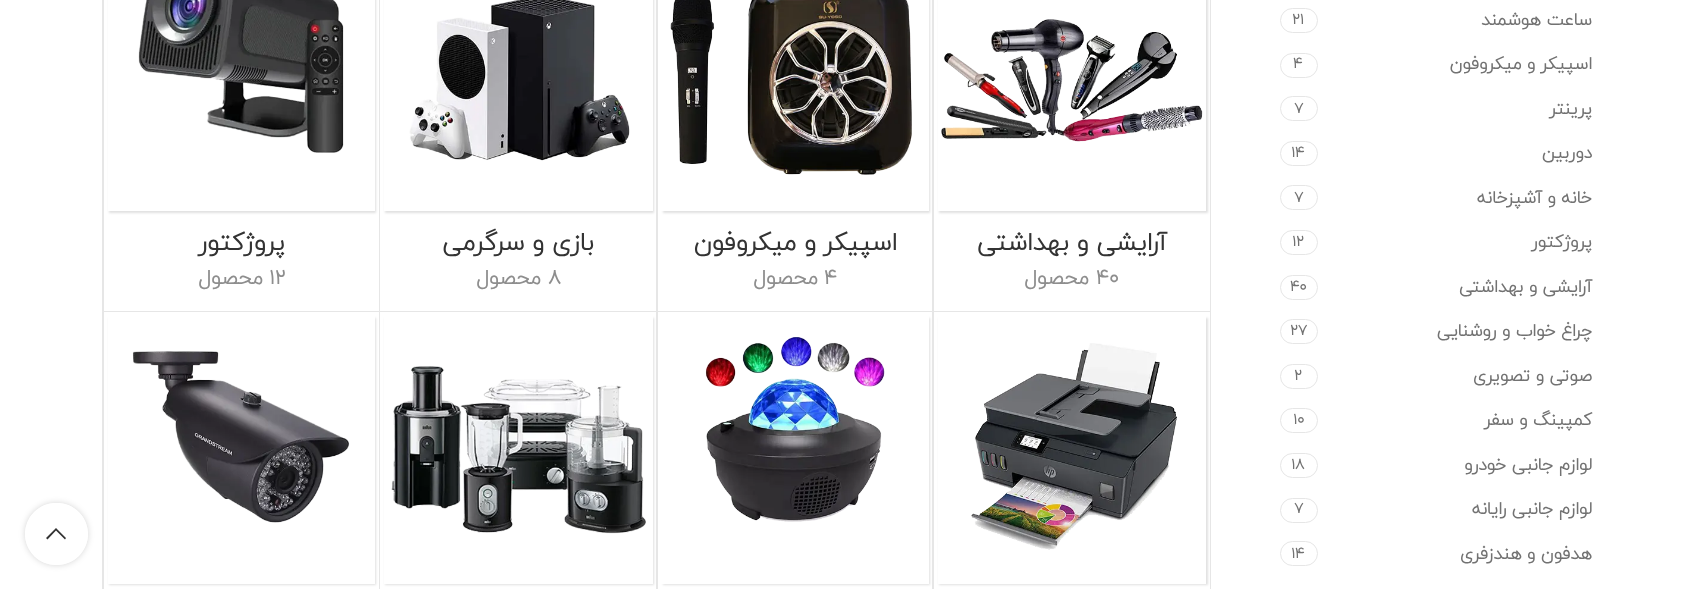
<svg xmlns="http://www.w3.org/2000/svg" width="1695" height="589">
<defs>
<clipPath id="clip1"><path d="M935 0h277v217h-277zm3-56h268v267h-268z" clip-rule="evenodd"/></clipPath>
<clipPath id="clip2"><path d="M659 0h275v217h-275zm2-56h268v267h-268z" clip-rule="evenodd"/></clipPath>
<clipPath id="clip3"><path d="M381 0h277v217h-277zm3-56h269v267h-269z" clip-rule="evenodd"/></clipPath>
<clipPath id="clip4"><path d="M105 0h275v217h-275zm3-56h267v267h-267z" clip-rule="evenodd"/></clipPath>
<clipPath id="clip5"><path d="M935 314h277v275h-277zm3 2h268v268h-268z" clip-rule="evenodd"/></clipPath>
<clipPath id="clip6"><path d="M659 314h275v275h-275zm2 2h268v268h-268z" clip-rule="evenodd"/></clipPath>
<clipPath id="clip7"><path d="M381 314h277v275h-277zm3 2h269v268h-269z" clip-rule="evenodd"/></clipPath>
<clipPath id="clip8"><path d="M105 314h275v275h-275zm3 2h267v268h-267z" clip-rule="evenodd"/></clipPath>
<clipPath id="clip9"><path d="M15 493h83v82h-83zm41 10h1c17 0 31 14 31 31c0 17-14 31-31 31h-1c-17 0-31-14-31-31c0-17 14-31 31-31z" clip-rule="evenodd"/></clipPath>
</defs>
<rect width="100%" height="100%" fill="#fff"/>
<text x="1592" y="25" style="font-family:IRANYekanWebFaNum;font-size:17.5px;font-weight:bold;direction:rtl;fill:#727272">ساعت هوشمند</text>
<rect x="1280.5" y="8.5" width="37" height="24" rx="12" fill="none" stroke="#e6e6e6"/>
<text x="1292" y="24" style="font-family:IRANYekanWebFaNum;font-size:15px;font-weight:bold;fill:#727272">۲۱</text>
<text x="1592" y="69" style="font-family:IRANYekanWebFaNum;font-size:17.5px;font-weight:bold;direction:rtl;fill:#727272">اسپیکر و میکروفون</text>
<rect x="1280.5" y="53.5" width="37" height="24" rx="12" fill="none" stroke="#e6e6e6"/>
<text x="1293" y="68" style="font-family:IRANYekanWebFaNum;font-size:15px;font-weight:bold;fill:#727272">۴</text>
<text x="1592" y="114" style="font-family:IRANYekanWebFaNum;font-size:17.5px;font-weight:bold;direction:rtl;fill:#727272">پرینتر</text>
<rect x="1280.5" y="96.5" width="37" height="24" rx="12" fill="none" stroke="#e6e6e6"/>
<text x="1294" y="113" style="font-family:IRANYekanWebFaNum;font-size:15px;font-weight:bold;fill:#727272">۷</text>
<text x="1592" y="158" style="font-family:IRANYekanWebFaNum;font-size:17.5px;font-weight:bold;direction:rtl;fill:#727272">دوربین</text>
<rect x="1280.5" y="141.5" width="37" height="24" rx="12" fill="none" stroke="#e6e6e6"/>
<text x="1291" y="157" style="font-family:IRANYekanWebFaNum;font-size:15px;font-weight:bold;fill:#727272">۱۴</text>
<text x="1592" y="203" style="font-family:IRANYekanWebFaNum;font-size:17.5px;font-weight:bold;direction:rtl;fill:#727272">خانه و آشپزخانه</text>
<rect x="1280.5" y="185.5" width="37" height="24" rx="12" fill="none" stroke="#e6e6e6"/>
<text x="1294" y="202" style="font-family:IRANYekanWebFaNum;font-size:15px;font-weight:bold;fill:#727272">۷</text>
<text x="1592" y="247" style="font-family:IRANYekanWebFaNum;font-size:17.5px;font-weight:bold;direction:rtl;fill:#727272">پروژکتور</text>
<rect x="1280.5" y="230.5" width="37" height="24" rx="12" fill="none" stroke="#e6e6e6"/>
<text x="1292" y="246" style="font-family:IRANYekanWebFaNum;font-size:15px;font-weight:bold;fill:#727272">۱۲</text>
<text x="1592" y="292" style="font-family:IRANYekanWebFaNum;font-size:17.5px;font-weight:bold;direction:rtl;fill:#727272">آرایشی و بهداشتی</text>
<rect x="1280.5" y="275.5" width="37" height="24" rx="12" fill="none" stroke="#e6e6e6"/>
<text x="1290" y="291" style="font-family:IRANYekanWebFaNum;font-size:15px;font-weight:bold;fill:#727272">۴۰</text>
<text x="1592" y="336" style="font-family:IRANYekanWebFaNum;font-size:17.5px;font-weight:bold;direction:rtl;fill:#727272">چراغ خواب و روشنایی</text>
<rect x="1280.5" y="319.5" width="37" height="24" rx="12" fill="none" stroke="#e6e6e6"/>
<text x="1290" y="335" style="font-family:IRANYekanWebFaNum;font-size:15px;font-weight:bold;fill:#727272">۲۷</text>
<text x="1592" y="381" style="font-family:IRANYekanWebFaNum;font-size:17.5px;font-weight:bold;direction:rtl;fill:#727272">صوتی و تصویری</text>
<rect x="1280.5" y="364.5" width="37" height="24" rx="12" fill="none" stroke="#e6e6e6"/>
<text x="1294" y="380" style="font-family:IRANYekanWebFaNum;font-size:15px;font-weight:bold;fill:#727272">۲</text>
<text x="1592" y="425" style="font-family:IRANYekanWebFaNum;font-size:17.5px;font-weight:bold;direction:rtl;fill:#727272">کمپینگ و سفر</text>
<rect x="1280.5" y="408.5" width="37" height="24" rx="12" fill="none" stroke="#e6e6e6"/>
<text x="1293" y="424" style="font-family:IRANYekanWebFaNum;font-size:15px;font-weight:bold;fill:#727272">۱۰</text>
<text x="1592" y="470" style="font-family:IRANYekanWebFaNum;font-size:17.5px;font-weight:bold;direction:rtl;fill:#727272">لوازم جانبی خودرو</text>
<rect x="1280.5" y="453.5" width="37" height="24" rx="12" fill="none" stroke="#e6e6e6"/>
<text x="1291" y="469" style="font-family:IRANYekanWebFaNum;font-size:15px;font-weight:bold;fill:#727272">۱۸</text>
<text x="1592" y="514" style="font-family:IRANYekanWebFaNum;font-size:17.5px;font-weight:bold;direction:rtl;fill:#727272">لوازم جانبی رایانه</text>
<rect x="1280.5" y="498.5" width="37" height="24" rx="12" fill="none" stroke="#e6e6e6"/>
<text x="1294" y="513" style="font-family:IRANYekanWebFaNum;font-size:15px;font-weight:bold;fill:#727272">۷</text>
<text x="1592" y="559" style="font-family:IRANYekanWebFaNum;font-size:17.5px;font-weight:bold;direction:rtl;fill:#727272">هدفون و هندزفری</text>
<rect x="1280.5" y="541.5" width="37" height="24" rx="12" fill="none" stroke="#e6e6e6"/>
<text x="1291" y="558" style="font-family:IRANYekanWebFaNum;font-size:15px;font-weight:bold;fill:#727272">۱۴</text>
<rect x="1210" width="1" height="589" fill="#e6e6e6"/>
<path d="M1210 312h-278l2-1h276z" fill="#e6e6e6"/>
<path d="M932 312v-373l2 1v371z" fill="#81818133"/>
<g clip-path="url(#clip1)">
<rect x="939" y="-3" width="269" height="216" fill="#0000001f" filter="blur(1px)"/>
</g>
<image x="941" y="19" width="262" height="123" href="media/1.png"/>
<text x="1167" y="250" style="font-family:IRANYekanWebFaNum;font-size:25px;font-weight:bold;direction:rtl;fill:#333">آرایشی و بهداشتی</text>
<text x="1096" y="284" style="font-family:IRANYekanWebFaNum;font-size:20.5px;font-weight:bold;fill:#8e8e8e">40</text>
<text x="1089" y="284" style="font-family:IRANYekanWebFaNum;font-size:20.5px;font-weight:bold;direction:rtl;fill:#8e8e8e">محصول</text>
<path d="M932 312h-276l2-1h274z" fill="#e6e6e6"/>
<path d="M656 312v-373l2 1v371z" fill="#81818133"/>
<g clip-path="url(#clip2)">
<rect x="663" y="-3" width="267" height="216" fill="#0000001f" filter="blur(1px)"/>
</g>
<image x="670" y="0" width="242" height="175" href="media/2.png"/>
<text x="897" y="250" style="font-family:IRANYekanWebFaNum;font-size:25px;font-weight:bold;direction:rtl;fill:#333">اسپیکر و میکروفون</text>
<text x="824" y="284" style="font-family:IRANYekanWebFaNum;font-size:20.5px;font-weight:bold;fill:#8e8e8e">4</text>
<text x="818" y="284" style="font-family:IRANYekanWebFaNum;font-size:20.5px;font-weight:bold;direction:rtl;fill:#8e8e8e">محصول</text>
<path d="M656 312h-277l1-1h276z" fill="#e6e6e6"/>
<path d="M379 312v-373l1 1v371z" fill="#81818133"/>
<g clip-path="url(#clip3)">
<rect x="385" y="-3" width="269" height="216" fill="#0000001f" filter="blur(1px)"/>
</g>
<image x="409" y="0" width="221" height="161" href="media/3.png"/>
<text x="594" y="250" style="font-family:IRANYekanWebFaNum;font-size:25px;font-weight:bold;direction:rtl;fill:#333">بازی و سرگرمی</text>
<text x="548" y="284" style="font-family:IRANYekanWebFaNum;font-size:20.5px;font-weight:bold;fill:#8e8e8e">8</text>
<text x="541" y="284" style="font-family:IRANYekanWebFaNum;font-size:20.5px;font-weight:bold;direction:rtl;fill:#8e8e8e">محصول</text>
<path d="M379 312h-277l2-1h275z" fill="#e6e6e6"/>
<path d="M102 312v-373l2 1v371z" fill="#81818133"/>
<g clip-path="url(#clip4)">
<rect x="109" y="-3" width="267" height="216" fill="#0000001f" filter="blur(1px)"/>
</g>
<image x="138" y="0" width="206" height="153" href="media/4.png"/>
<text x="285" y="250" style="font-family:IRANYekanWebFaNum;font-size:25px;font-weight:bold;direction:rtl;fill:#333">پروژکتور</text>
<text x="269" y="284" style="font-family:IRANYekanWebFaNum;font-size:20.5px;font-weight:bold;fill:#8e8e8e">12</text>
<text x="263" y="284" style="font-family:IRANYekanWebFaNum;font-size:20.5px;font-weight:bold;direction:rtl;fill:#8e8e8e">محصول</text>
<path d="M932 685v-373h2v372z" fill="#e6e6e6"/>
<g clip-path="url(#clip5)">
<rect x="939" y="318" width="269" height="267" fill="#0000001f" filter="blur(1px)"/>
</g>
<image x="971" y="343" width="206" height="207" href="media/5.png"/>
<path d="M656 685v-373h2v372z" fill="#e6e6e6"/>
<g clip-path="url(#clip6)">
<rect x="663" y="318" width="267" height="267" fill="#0000001f" filter="blur(1px)"/>
</g>
<image x="705" y="337" width="180" height="185" href="media/6.png"/>
<path d="M379 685v-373h1v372z" fill="#e6e6e6"/>
<g clip-path="url(#clip7)">
<rect x="385" y="318" width="269" height="267" fill="#0000001f" filter="blur(1px)"/>
</g>
<image x="391" y="366" width="255" height="168" href="media/7.png"/>
<path d="M102 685v-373h2v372z" fill="#e6e6e6"/>
<g clip-path="url(#clip8)">
<rect x="109" y="318" width="267" height="267" fill="#0000001f" filter="blur(1px)"/>
</g>
<image x="132" y="351" width="218" height="172" href="media/8.png"/>
<g clip-path="url(#clip9)">
<rect x="25" y="503" width="63" height="62" rx="31" fill="#0000002b" filter="blur(3px)"/>
</g>
<rect x="25" y="503" width="63" height="62" rx="31" fill="#ffffffe6"/>
<path d="M56 528l-10 10l1.5 1.5l8.5-9l9 9l1-1.5z" fill="#333"/>
</svg>
